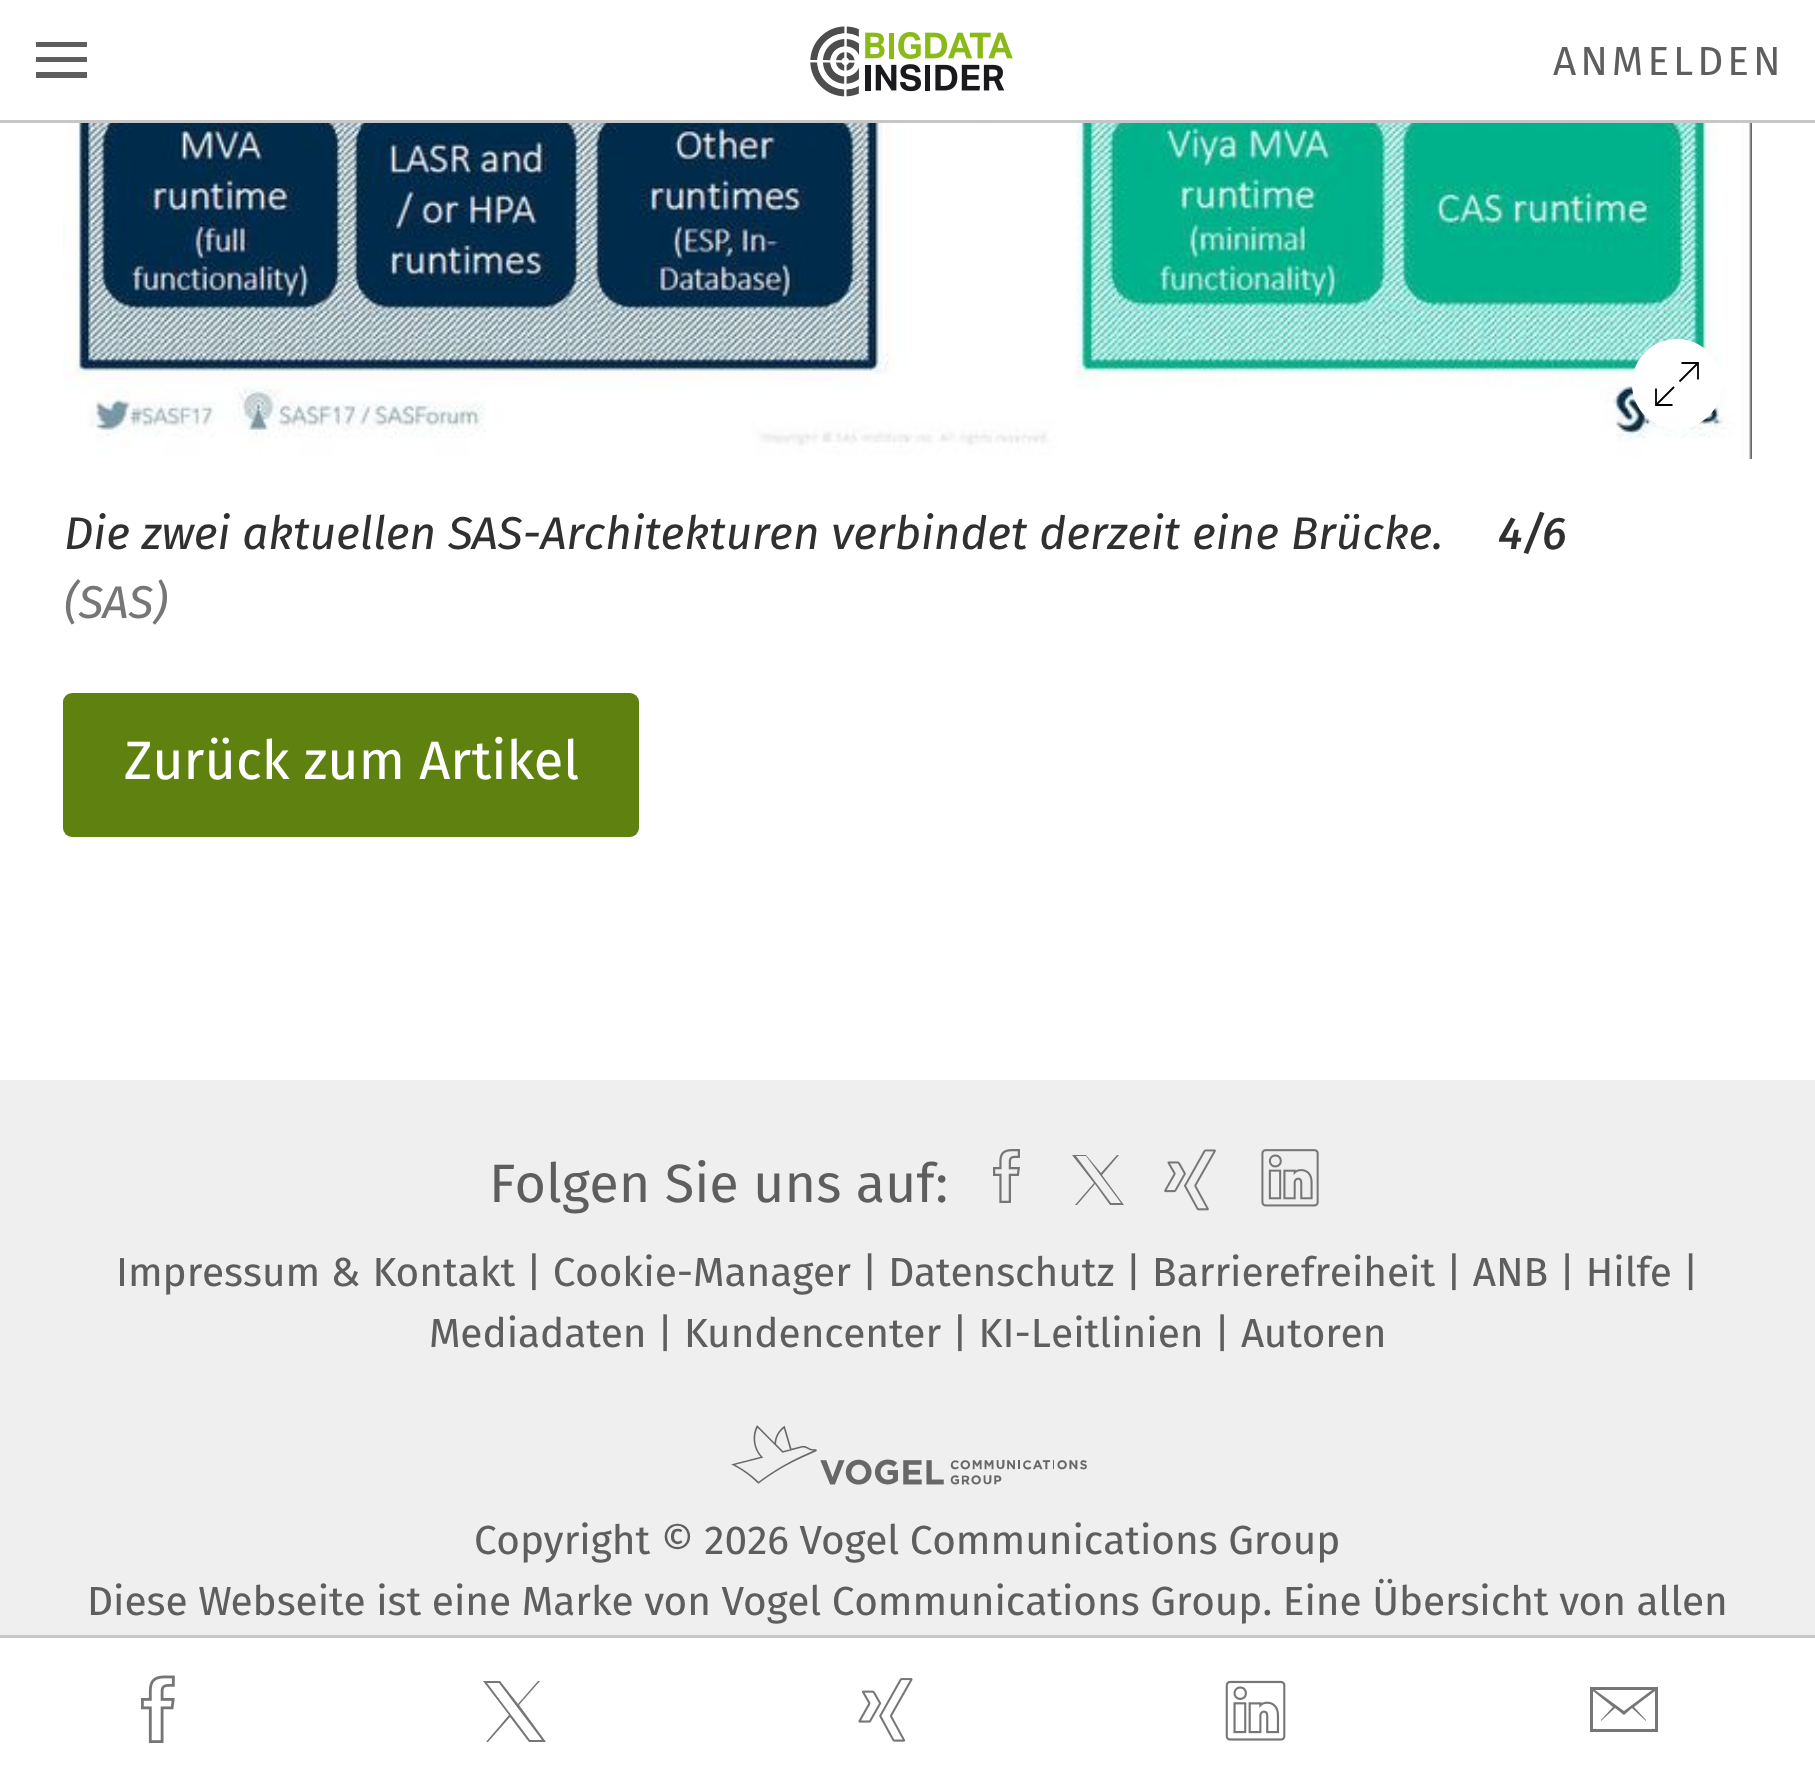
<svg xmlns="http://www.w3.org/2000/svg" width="1815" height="1785">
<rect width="100%" height="100%" fill="#fff"/>
<rect y="120" width="1815" height="3" fill="#c6c6c6"/>
<path d="M36 62v-5h51v5zm0-15v-5h51v5zm0 31v-6h51v6z" fill="#5e5e5e"/>
<image x="810" y="26" width="203" height="71" href="media/1.png"/>
<text x="1553" y="75" style="font-family:'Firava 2';font-size:40.5px;letter-spacing:4px;fill:#5e5e5e">ANMELDEN</text>
<image x="63" y="123" width="1689" height="336" href="media/2.png"/>
<path d="M1677 429c25 0 45-20 45-45c0-25-20-45-45-45c-25 0-45 20-45 45c0 25 20 45 45 45" fill="#fff"/>
<path d="M1698 379.5v-16.5h-16.5m-25.5 25.5v16.5h16.5m25-41.5l-18 18m-5.5 5.5l-18 18" fill="none" stroke="#000" stroke-width="1.8"/>
<text x="64" y="549" style="font-family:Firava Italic;font-size:45.9px;font-style:italic;fill:#303030">Die zwei aktuellen SAS-Architekturen verbindet derzeit eine Brücke.</text>
<text x="64" y="618" style="font-family:Firava Italic;font-size:45.9px;font-style:italic;fill:#767676">(SAS)</text>
<text x="1498" y="549" style="font-family:Firava Italic;font-size:45.9px;font-weight:500;font-style:italic;fill:#303030">4/6</text>
<rect x="63" y="693" width="576" height="144" rx="9" fill="#5f8110"/>
<text x="124" y="779" style="font-family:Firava;font-size:54px;fill:#fff">Zurück zum Artikel</text>
<rect y="1635" width="1815" height="3" fill="#c6c6c6"/>
<image x="141" y="1675" width="34" height="68" href="media/3.png"/>
<path d="M486 1742h2l22-25l19 25h17l-27-37l21-24h-2l-20 23l-18-23h-17l26 34zm1-59h12l43 57h-12z" fill="#767676"/>
<image x="858" y="1678" width="55" height="64" href="media/4.png"/>
<image x="1225" y="1680" width="61" height="61" href="media/5.png"/>
<path d="M1590 1687h68v45h-68zm34 24l28-21h-57zm-31 18h62v-38l-21 16l12 13v1l-14-13l-8 7l-9-7l-14 13v-1l12-13l-20-16z" fill="#767676"/>
<rect y="1080" width="1815" height="555" fill="#efefef"/>
<text x="489" y="1202" style="font-family:'Firava 2';font-size:54px;fill:#5e5e5e">Folgen Sie uns auf:</text>
<image x="993" y="1149" width="27" height="54" href="media/6.png"/>
<path d="M1075 1205h2l18-21l15 21h14l-22-30l17-20h-2l-16 18l-15-18h-14l22 28zm1-49h10l35 47h-10z" fill="#767676"/>
<image x="1164" y="1149" width="52" height="62" href="media/7.png"/>
<image x="1261" y="1149" width="58" height="58" href="media/8.png"/>
<text x="116" y="1286" style="font-family:Firava;font-size:40.5px;fill:#5e5e5e">Impressum &amp; Kontakt | Cookie-Manager | Datenschutz | Barrierefreiheit | ANB | Hilfe |</text>
<text x="429" y="1347" style="font-family:Firava;font-size:40.5px;fill:#5e5e5e">Mediadaten | Kundencenter | KI-Leitlinien | Autoren</text>
<image x="731" y="1425" width="356" height="60" href="media/9.png"/>
<text x="474" y="1554" style="font-family:Firava;font-size:40.5px;fill:#5e5e5e">Copyright © 2026 Vogel Communications Group</text>
<text x="87" y="1615" style="font-family:Firava;font-size:40.5px;fill:#5e5e5e">Diese Webseite ist eine Marke von Vogel Communications Group. Eine Übersicht von allen</text>
</svg>
